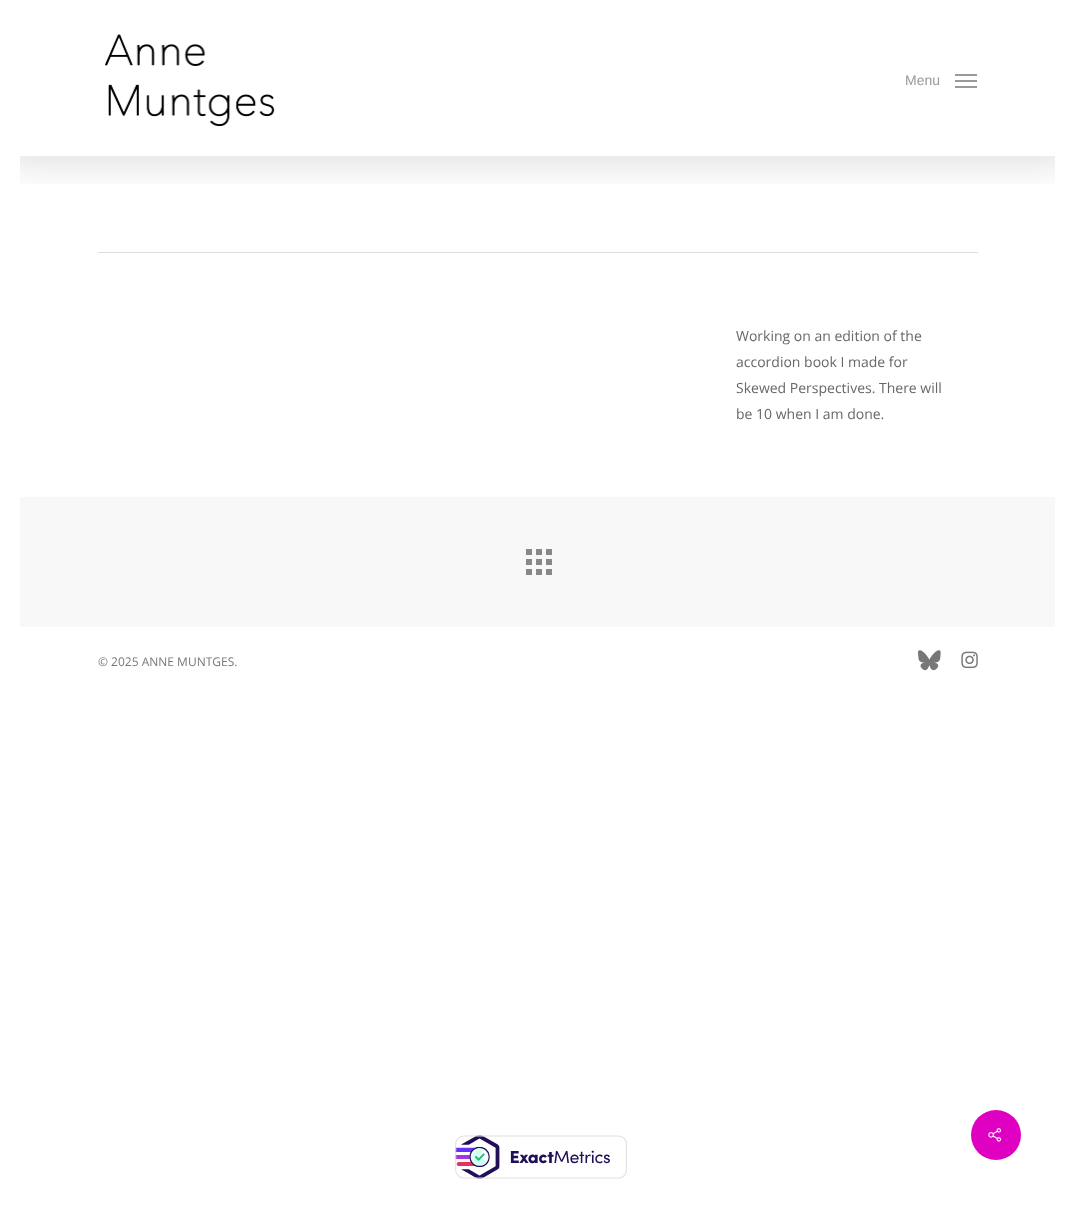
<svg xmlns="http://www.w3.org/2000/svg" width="1075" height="1214">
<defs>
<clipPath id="clip1"><rect x="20" y="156" width="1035" height="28"/></clipPath>
</defs>
<rect width="100%" height="100%" fill="#fff"/>
<g clip-path="url(#clip1)">
<rect y="3" width="1075" height="156" fill="#00000026" filter="blur(22.5px)"/>
</g>
<image x="105" y="34" width="170" height="93" href="media/1.png"/>
<text x="905" y="85" style="font-family:Liberation Sans;font-size:14px;fill:#999">Menu</text>
<rect x="955" y="74" width="22" height="2" fill="#999"/>
<rect x="955" y="86" width="22" height="2" fill="#999"/>
<rect x="955" y="80" width="22" height="2" fill="#999"/>
<rect y="156" width="20" height="34" fill="#fff"/>
<rect x="1055" y="156" width="20" height="34" fill="#fff"/>
<rect x="98" y="252" width="880" height="1" fill="#ddd"/>
<text x="736" y="341" style="font-family:Open Sans;font-size:14px;fill:#676767">Working on an edition of the</text>
<text x="736" y="367" style="font-family:Open Sans;font-size:14px;fill:#676767">accordion book I made for</text>
<text x="736" y="393" style="font-family:Open Sans;font-size:14px;fill:#676767">Skewed Perspectives. There will</text>
<text x="736" y="419" style="font-family:Open Sans;font-size:14px;fill:#676767">be 10 when I am done.</text>
<rect x="20" y="497" width="1035" height="130" fill="#f8f8f8"/>
<rect x="546" y="569" width="6" height="6" fill="#888"/>
<rect x="536" y="569" width="6" height="6" fill="#888"/>
<rect x="526" y="549" width="6" height="6" fill="#888"/>
<rect x="536" y="549" width="6" height="6" fill="#888"/>
<rect x="546" y="549" width="6" height="6" fill="#888"/>
<rect x="546" y="559" width="6" height="6" fill="#888"/>
<rect x="526" y="569" width="6" height="6" fill="#888"/>
<rect x="526" y="559" width="6" height="6" fill="#888"/>
<rect x="536" y="559" width="6" height="6" fill="#888"/>
<text x="98" y="666" style="font-family:Open Sans;font-size:12px;fill:#777">© 2025 ANNE MUNTGES.</text>
<image x="918" y="650" width="23" height="21" href="media/2.png"/>
<image x="961" y="651" width="17" height="18" href="media/3.png"/>
<circle cx="996" cy="1135" r="25" fill="#e000c2"/>
<image x="988" y="1128" width="13" height="14" href="media/4.png"/>
<image x="455" y="1135" width="172" height="44" href="media/5.png"/>
</svg>
